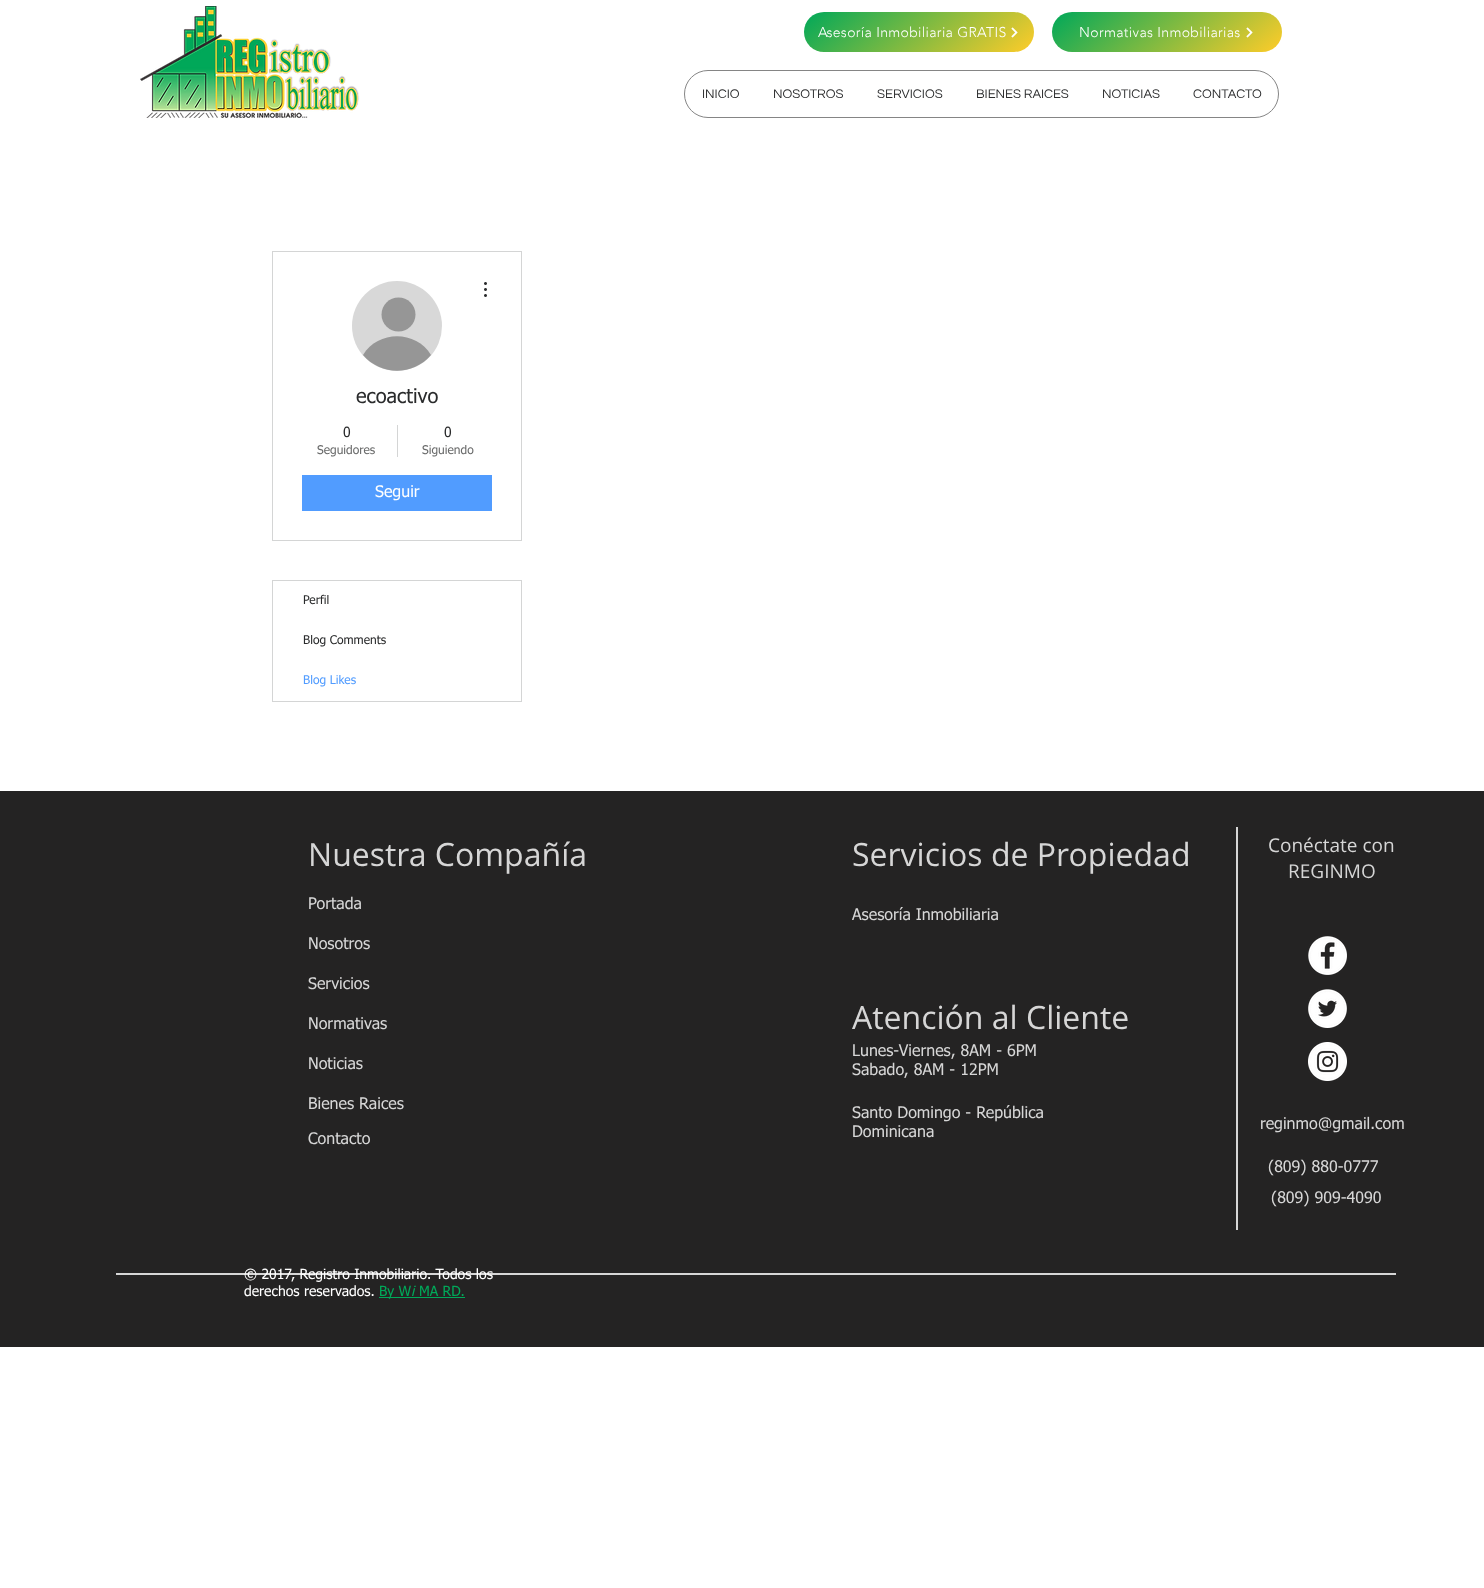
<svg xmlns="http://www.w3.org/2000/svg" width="1484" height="1588">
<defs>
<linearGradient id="g1" gradientUnits="userSpaceOnUse" x1="864" y1="-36" x2="974" y2="100"><stop offset="0" stop-color="#00a859"/><stop offset="1" stop-color="#ffcc29"/></linearGradient>
<linearGradient id="g2" gradientUnits="userSpaceOnUse" x1="1112" y1="-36" x2="1222" y2="100"><stop offset="0" stop-color="#00a859"/><stop offset="1" stop-color="#ffcc29"/></linearGradient>
</defs>
<rect width="100%" height="100%" fill="#fff"/>
<image x="140" y="6" width="220" height="112" href="media/1.png"/>
<rect x="804" y="12" width="230" height="40" rx="20" fill="url(#g1)"/>
<text x="818" y="37" style="font-family:'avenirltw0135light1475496';font-size:14px;font-weight:300;letter-spacing:0.35px;fill:#fff">Asesoría Inmobiliaria GRATIS</text>
<image x="1011" y="27" width="7" height="11" href="media/2.png"/>
<rect x="1052" y="12" width="230" height="40" rx="20" fill="url(#g2)"/>
<text x="1079" y="37" style="font-family:'avenirltw0135light1475496';font-size:14px;font-weight:300;letter-spacing:0.35px;fill:#fff">Normativas Inmobiliarias</text>
<image x="1246" y="27" width="7" height="11" href="media/3.png"/>
<rect x="684.5" y="70.5" width="594" height="47" rx="23.5" fill="none" stroke="#858585"/>
<text x="702" y="98" style="font-family:Questrial;font-size:13px;fill:#2a2b2c">INICIO</text>
<text x="773" y="98" style="font-family:Questrial;font-size:13px;fill:#2a2b2c">NOSOTROS</text>
<text x="877" y="98" style="font-family:Questrial;font-size:13px;fill:#2a2b2c">SERVICIOS</text>
<text x="976" y="98" style="font-family:Questrial;font-size:13px;fill:#2a2b2c">BIENES RAICES</text>
<text x="1102" y="98" style="font-family:Questrial;font-size:13px;fill:#2a2b2c">NOTICIAS</text>
<text x="1193" y="98" style="font-family:Questrial;font-size:13px;fill:#2a2b2c">CONTACTO</text>
<rect x="272.5" y="251.5" width="249" height="289" fill="none" stroke="#d4d5d5"/>
<circle cx="397" cy="326" r="45" fill="#d8d8d8"/>
<circle cx="398.5" cy="314.5" r="17" fill="#969696"/>
<path d="M431 355c-18 21-50 21-68 0c15-25 53-25 68 0z" fill="#969696"/>
<image x="484" y="282" width="3" height="15" href="media/4.png"/>
<text x="356" y="403" style="font-family:tahoma;font-size:20px;fill:#2a2b2c">ecoactivo</text>
<text x="343" y="437" style="font-family:tahoma;font-size:14px;fill:#2a2b2c">0</text>
<text x="317" y="454" style="font-family:tahoma;font-size:12px;fill:#6a6b6b">Seguidores</text>
<rect x="397" y="425" width="1" height="32" fill="#d4d5d5"/>
<text x="444" y="437" style="font-family:tahoma;font-size:14px;fill:#2a2b2c">0</text>
<text x="422" y="454" style="font-family:tahoma;font-size:12px;fill:#6a6b6b">Siguiendo</text>
<rect x="302" y="475" width="190" height="36" fill="#519cff"/>
<text x="375" y="497" style="font-family:tahoma;font-size:16px;fill:#fff">Seguir</text>
<rect x="272.5" y="580.5" width="249" height="121" fill="none" stroke="#d4d5d5"/>
<text x="303" y="604" style="font-family:tahoma;font-size:12px;fill:#2a2b2c">Perfil</text>
<text x="303" y="644" style="font-family:tahoma;font-size:12px;fill:#2a2b2c">Blog Comments</text>
<text x="303" y="684" style="font-family:tahoma;font-size:12px;fill:#519cff">Blog Likes</text>
<rect y="791" width="1484" height="556" fill="#242323"/>
<text x="308" y="866" style="font-family:Open Sans;font-size:32px;fill:#d6d6d6">Nuestra Compañía</text>
<text x="852" y="866" style="font-family:Open Sans;font-size:32px;fill:#d6d6d6">Servicios de Propiedad</text>
<rect x="1236" y="827" width="2" height="403" fill="#d6d6d6"/>
<text x="1268" y="852" style="font-family:Open Sans;font-size:19px;fill:#d6d6d6">Conéctate con</text>
<text x="1288" y="878" style="font-family:Open Sans;font-size:19px;fill:#d6d6d6">REGINMO</text>
<text x="308" y="909" style="font-family:tahoma;font-size:16px;fill:#d6d6d6">Portada</text>
<text x="308" y="949" style="font-family:tahoma;font-size:16px;fill:#d6d6d6">Nosotros</text>
<text x="308" y="989" style="font-family:tahoma;font-size:16px;fill:#d6d6d6">Servicios</text>
<text x="308" y="1029" style="font-family:tahoma;font-size:16px;fill:#d6d6d6">Normativas</text>
<text x="308" y="1069" style="font-family:tahoma;font-size:16px;fill:#d6d6d6">Noticias</text>
<text x="308" y="1109" style="font-family:tahoma;font-size:16px;fill:#d6d6d6">Bienes Raices</text>
<text x="308" y="1144" style="font-family:tahoma;font-size:16px;fill:#d6d6d6">Contacto</text>
<text x="852" y="920" style="font-family:tahoma;font-size:16px;fill:#d6d6d6">Asesoría Inmobiliaria</text>
<text x="852" y="1029" style="font-family:Open Sans;font-size:32px;fill:#d6d6d6">Atención al Cliente</text>
<image x="1308" y="936" width="39" height="39" href="media/5.png"/>
<image x="1308" y="989" width="39" height="39" href="media/6.png"/>
<image x="1308" y="1042" width="39" height="39" href="media/7.png"/>
<text x="852" y="1056" style="font-family:tahoma;font-size:16px;fill:#d6d6d6">Lunes-Viernes, 8AM - 6PM</text>
<text x="852" y="1075" style="font-family:tahoma;font-size:16px;fill:#d6d6d6">Sabado, 8AM - 12PM</text>
<text x="852" y="1118" style="font-family:tahoma;font-size:16px;fill:#d6d6d6">Santo Domingo - República</text>
<text x="852" y="1137" style="font-family:tahoma;font-size:16px;fill:#d6d6d6">Dominicana</text>
<text x="1260" y="1129" style="font-family:tahoma;font-size:16px;fill:#d6d6d6">reginmo@gmail.com</text>
<text x="1268" y="1172" style="font-family:tahoma;font-size:16px;fill:#d6d6d6">(809) 880-0777</text>
<text x="1271" y="1203" style="font-family:tahoma;font-size:16px;fill:#d6d6d6">(809) 909-4090</text>
<rect x="116" y="1273" width="1280" height="2" fill="#d6d6d6"/>
<text x="244" y="1279" style="font-family:tahoma;font-size:14px;fill:#fff">© 2017, Registro Inmobiliario. Todos los</text>
<text x="244" y="1296" style="font-family:tahoma;font-size:14px;fill:#fff">derechos reservados.</text>
<rect x="379" y="1297" width="32" height="1" fill="#00a859"/>
<text x="379" y="1296" style="font-family:tahoma;font-size:14px;fill:#00a859">By W</text>
<rect x="411" y="1297" width="54" height="1" fill="#00a859"/>
<text x="411" y="1296" style="font-family:tahoma;font-size:14px;font-style:italic;fill:#00a859">i</text>
<text x="419" y="1296" style="font-family:tahoma;font-size:14px;fill:#00a859">MA RD.</text>
</svg>
